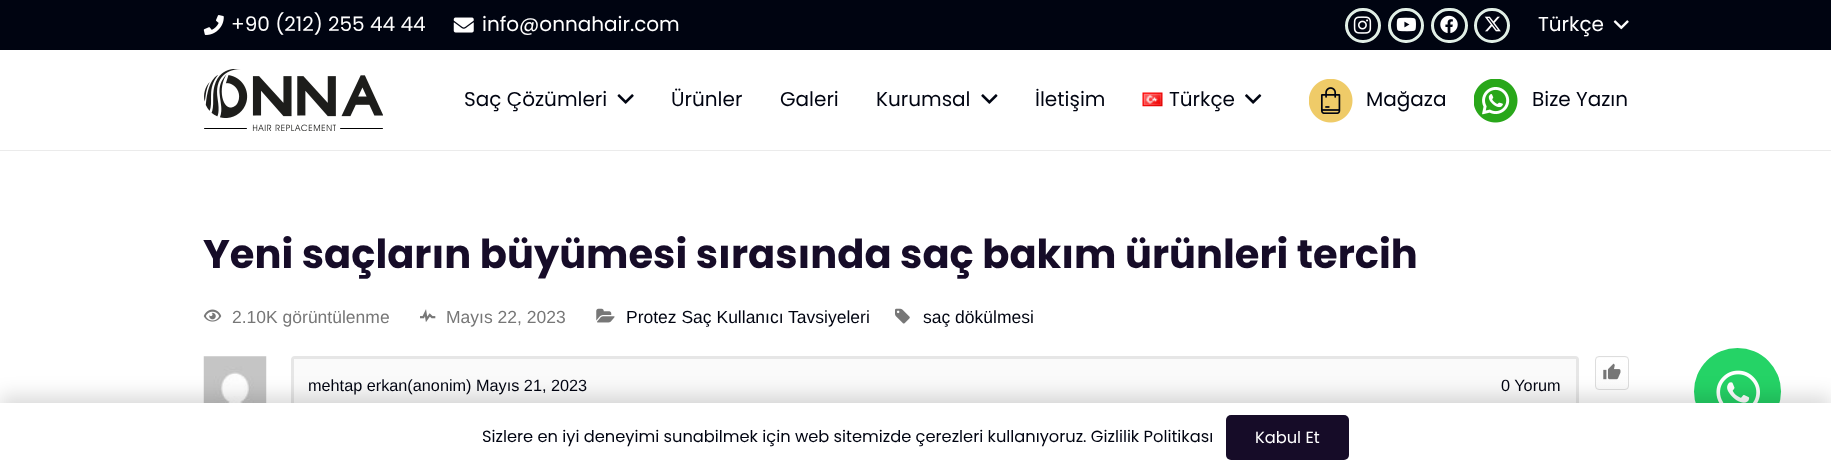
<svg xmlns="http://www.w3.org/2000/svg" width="1831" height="472">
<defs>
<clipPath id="clip1"><rect x="1595" y="356" width="34" height="34" rx="4"/></clipPath>
<linearGradient id="g1" gradientUnits="userSpaceOnUse" x1="1612" y1="326" x2="1612" y2="358"><stop offset="0" stop-color="#fff"/><stop offset="1" stop-color="#fcfcfc"/></linearGradient>
<linearGradient id="g2" gradientUnits="userSpaceOnUse" x1="1612" y1="358" x2="1612" y2="389"><stop offset="0" stop-color="#fff"/><stop offset="1" stop-color="#fcfcfc"/></linearGradient>
</defs>
<rect width="100%" height="100%" fill="#fff"/>
<rect width="1831" height="50" fill="#000411"/>
<image x="203" y="15" width="21" height="20" href="media/1.png"/>
<text x="231" y="31" style="font-family:Poppins;font-size:20px;fill:#fff">+90 (212) 255 44 44</text>
<image x="453" y="17" width="21" height="16" href="media/2.png"/>
<text x="482" y="31" style="font-family:Poppins;font-size:20px;fill:#fff">info@onnahair.com</text>
<rect x="1346.5" y="9.5" width="33" height="32" rx="16" fill="none" stroke="#e1efe6" stroke-width="3"/>
<image x="1353" y="16" width="19" height="18" href="media/3.png"/>
<rect x="1389.5" y="9.5" width="33" height="32" rx="16" fill="none" stroke="#e1efe6" stroke-width="3"/>
<image x="1396" y="17" width="20" height="15" href="media/4.png"/>
<rect x="1432.5" y="9.5" width="34" height="32" rx="16" fill="none" stroke="#e1efe6" stroke-width="3"/>
<image x="1440" y="15" width="18" height="19" href="media/5.png"/>
<rect x="1475.5" y="9.5" width="33" height="32" rx="16" fill="none" stroke="#e1efe6" stroke-width="3"/>
<image x="1484" y="16" width="17" height="16" href="media/6.png"/>
<text x="1538" y="31" style="font-family:Poppins;font-size:20px;fill:#fff">Türkçe</text>
<image x="1613" y="20" width="16" height="10" href="media/7.png"/>
<rect y="150" width="1831" height="1" fill="#ebebeb"/>
<image x="204" y="69" width="179" height="62" href="media/8.png"/>
<text x="464" y="106" style="font-family:Poppins;font-size:20px;fill:#000411">Saç Çözümleri</text>
<image x="617" y="94" width="17" height="10" href="media/9.png"/>
<text x="671" y="106" style="font-family:Poppins;font-size:20px;fill:#000411">Ürünler</text>
<text x="780" y="106" style="font-family:Poppins;font-size:20px;fill:#000411">Galeri</text>
<text x="876" y="106" style="font-family:Poppins;font-size:20px;fill:#000411">Kurumsal</text>
<image x="981" y="94" width="17" height="10" href="media/10.png"/>
<text x="1035" y="106" style="font-family:Poppins;font-size:20px;fill:#000411">İletişim</text>
<image x="1142" y="92" width="21" height="15" href="media/11.png"/>
<text x="1169" y="106" style="font-family:Poppins;font-size:20px;fill:#000411">Türkçe</text>
<image x="1245" y="94" width="17" height="10" href="media/12.png"/>
<image x="1309" y="79" width="44" height="44" href="media/13.png"/>
<text x="1366" y="106" style="font-family:Poppins;font-size:20px;fill:#000411">Mağaza</text>
<image x="1474" y="79" width="44" height="44" href="media/14.png"/>
<text x="1532" y="106" style="font-family:Poppins;font-size:20px;fill:#000411">Bize Yazın</text>
<text x="203" y="268" style="font-family:Poppins;font-size:40px;font-weight:bold;fill:#160c28">Yeni saçların büyümesi sırasında saç bakım ürünleri tercih</text>
<image x="203" y="309" width="19" height="13" href="media/15.png"/>
<text x="232" y="323" style="font-family:Liberation Sans;font-size:17.5px;fill:#777">2.10K görüntülenme</text>
<image x="420" y="309" width="16" height="13" href="media/16.png"/>
<text x="446" y="323" style="font-family:Liberation Sans;font-size:17.5px;fill:#777">Mayıs 22, 2023</text>
<image x="596" y="308" width="19" height="15" href="media/17.png"/>
<text x="626" y="323" style="font-family:Liberation Sans;font-size:17.5px;fill:#000411">Protez Saç Kullanıcı Tavsiyeleri</text>
<image x="895" y="308" width="15" height="16" href="media/18.png"/>
<text x="923" y="323" style="font-family:Liberation Sans;font-size:17.5px;fill:#000411">saç dökülmesi</text>
<image x="203" y="356" width="64" height="47" href="media/19.png"/>
<rect x="292.5" y="357.5" width="1285" height="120" rx="2.5" fill="none" stroke="#e6e6e6" stroke-width="3"/>
<rect x="294" y="359" width="1282" height="44" fill="#fafafa"/>
<text x="308" y="391" style="font-family:Liberation Sans;font-size:16.25px;fill:#000411">mehtap erkan(anonim) Mayıs 21, 2023</text>
<text x="1501" y="391" style="font-family:Liberation Sans;font-size:16.25px;fill:#000411">0 Yorum</text>
<g clip-path="url(#clip1)">
<rect x="1595" y="356" width="34" height="2" fill="url(#g1)"/>
<rect x="1595" y="358" width="34" height="31" fill="url(#g2)"/>
</g>
<rect x="1595.5" y="356.5" width="33" height="33" rx="3.5" fill="none" stroke="#ddd"/>
<image x="1603" y="363" width="18" height="17" href="media/20.png"/>
<circle cx="1737.5" cy="391.5" r="43.5" fill="#25d366"/>
<image x="1716" y="370" width="44" height="33" href="media/21.png"/>
<rect y="396" width="1831" height="70" fill="#00000026" filter="blur(9.5px)"/>
<rect y="403" width="1831" height="69" fill="#fff"/>
<text x="482" y="442" style="font-family:Poppins;font-size:16.25px;fill:#000411">Sizlere en iyi deneyimi sunabilmek için web sitemizde çerezleri kullanıyoruz. Gizlilik Politikası</text>
<rect x="1226" y="415" width="123" height="45" rx="5" fill="#160c28"/>
<text x="1255" y="443" style="font-family:Poppins;font-size:16.25px;fill:#fff">Kabul Et</text>
</svg>
